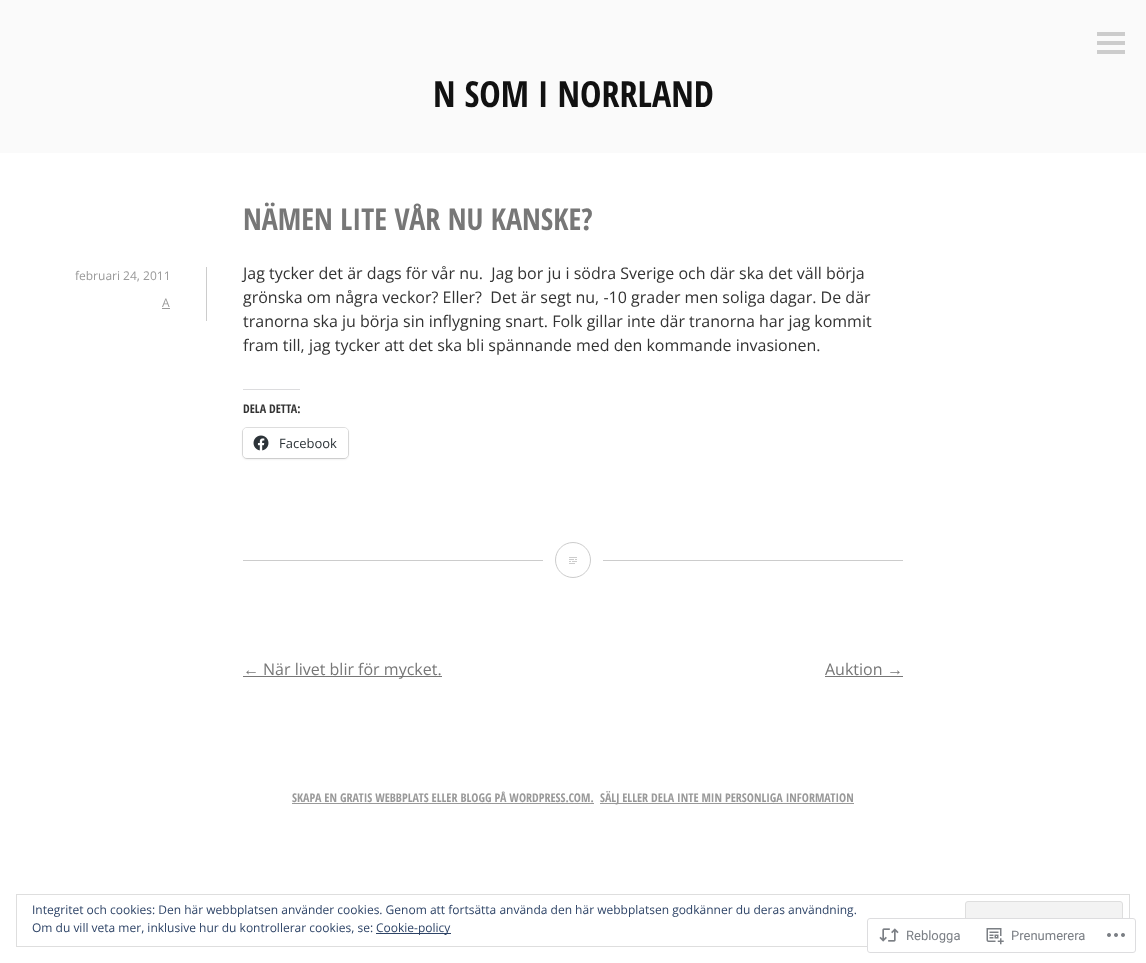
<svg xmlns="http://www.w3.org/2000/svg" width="1146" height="963">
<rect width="100%" height="100%" fill="#fff"/>
<rect width="1146" height="153" fill="#fafafa"/>
<rect x="1097" y="32" width="28" height="4" fill="#ccc"/>
<rect x="1097" y="41" width="28" height="4" fill="#ccc"/>
<rect x="1097" y="50" width="28" height="4" fill="#ccc"/>
<text x="433" y="107" style="font-family:Open Sans Condensed;font-size:36px;font-weight:bold;fill:#111">N SOM I NORRLAND</text>
<rect x="243" y="560" width="660" height="1" fill="#ccc"/>
<text x="243" y="230" style="font-family:Open Sans Condensed;font-size:30px;font-weight:bold;fill:#777">NÄMEN LITE VÅR NU KANSKE?</text>
<rect x="206" y="267" width="1" height="54" fill="#ccc"/>
<text x="75" y="280" style="font-family:Open Sans;font-size:12px;fill:#999">februari 24, 2011</text>
<text x="162" y="307" style="font-family:Open Sans;font-size:12px;fill:#999">A</text>
<rect x="162" y="308" width="8" height="1" fill="#999"/>
<text x="243" y="279" style="font-family:Open Sans;font-size:16px;fill:#333" xml:space="preserve">Jag tycker det är dags för vår nu.  Jag bor ju i södra Sverige och där ska det väll börja</text>
<text x="243" y="303" style="font-family:Open Sans;font-size:16px;fill:#333" xml:space="preserve">grönska om några veckor? Eller?  Det är segt nu, -10 grader men soliga dagar. De där</text>
<text x="243" y="327" style="font-family:Open Sans;font-size:16px;fill:#333">tranorna ska ju börja sin inflygning snart. Folk gillar inte där tranorna har jag kommit</text>
<text x="243" y="351" style="font-family:Open Sans;font-size:16px;fill:#333">fram till, jag tycker att det ska bli spännande med den kommande invasionen.</text>
<rect x="243" y="389" width="57" height="1" fill="#dcdcde"/>
<text x="243" y="413" style="font-family:Open Sans Condensed;font-size:12px;font-weight:bold;fill:#333">DELA DETTA:</text>
<rect x="242.5" y="427.5" width="106" height="31" rx="4.5" fill="none" stroke="#e0e0e0"/>
<rect x="243" y="429" width="105" height="30" rx="4" fill="#0000001f" filter="blur(1px)"/>
<rect x="243" y="428" width="105" height="30" rx="4" fill="#fff"/>
<image x="253" y="435" width="16" height="16" href="media/1.png"/>
<text x="279" y="448" style="font-family:Open Sans;font-size:13px;fill:#2c3338">Facebook</text>
<rect x="543" y="560" width="60" height="1" fill="#fff"/>
<circle cx="573" cy="560" r="17.5" fill="none" stroke="#ccc"/>
<image x="569" y="557" width="8" height="7" href="media/2.png"/>
<text x="243" y="675" style="font-family:Liberation Sans;font-size:16px;fill:#777">←</text>
<rect x="243" y="676" width="199" height="1" fill="#777"/>
<text x="263" y="675" style="font-family:Open Sans;font-size:16px;fill:#777">När livet blir för mycket.</text>
<text x="825" y="675" style="font-family:Open Sans;font-size:16px;fill:#777">Auktion</text>
<text x="887" y="675" style="font-family:Liberation Sans;font-size:16px;fill:#777">→</text>
<rect x="825" y="676" width="78" height="1" fill="#777"/>
<text x="292" y="802" style="font-family:Open Sans Condensed;font-size:12px;font-weight:bold;fill:#999">SKAPA EN GRATIS WEBBPLATS ELLER BLOGG PÅ WORDPRESS.COM.</text>
<rect x="292" y="803" width="302" height="1" fill="#999"/>
<rect x="600" y="803" width="254" height="1" fill="#999"/>
<text x="600" y="802" style="font-family:Open Sans Condensed;font-size:12px;font-weight:bold;fill:#999">SÄLJ ELLER DELA INTE MIN PERSONLIGA INFORMATION</text>
<rect x="16.5" y="894.5" width="1113" height="52" fill="none" stroke="#dedede"/>
<text x="32" y="914" style="font-family:Open Sans;font-size:12px;fill:#2e4467">Integritet och cookies: Den här webbplatsen använder cookies. Genom att fortsätta använda den här webbplatsen godkänner du deras användning.</text>
<rect x="965.5" y="901.5" width="157" height="38" rx="2.5" fill="#f3f3f3" stroke="#dedede"/>
<text x="32" y="932" style="font-family:Open Sans;font-size:12px;fill:#2e4467">Om du vill veta mer, inklusive hur du kontrollerar cookies, se:</text>
<rect x="376" y="933" width="75" height="1" fill="#2e4467"/>
<text x="376" y="932" style="font-family:Open Sans;font-size:12px;fill:#2e4467">Cookie-policy</text>
<rect x="867" y="918" width="269" height="35" rx="3" fill="#fffffffa"/>
<rect x="867.5" y="918.5" width="268" height="34" rx="2.5" fill="none" stroke="#dcdcdefa"/>
<image x="879" y="928" width="20" height="14" href="media/3.png"/>
<text x="906" y="940" style="font-family:Roboto;font-size:13px;fill:#7b7f85">Reblogga</text>
<image x="986" y="928" width="18" height="17" href="media/4.png"/>
<text x="1011" y="940" style="font-family:Roboto;font-size:13px;fill:#7b7f85">Prenumerera</text>
<image x="1107" y="933" width="18" height="4" href="media/5.png"/>
</svg>
